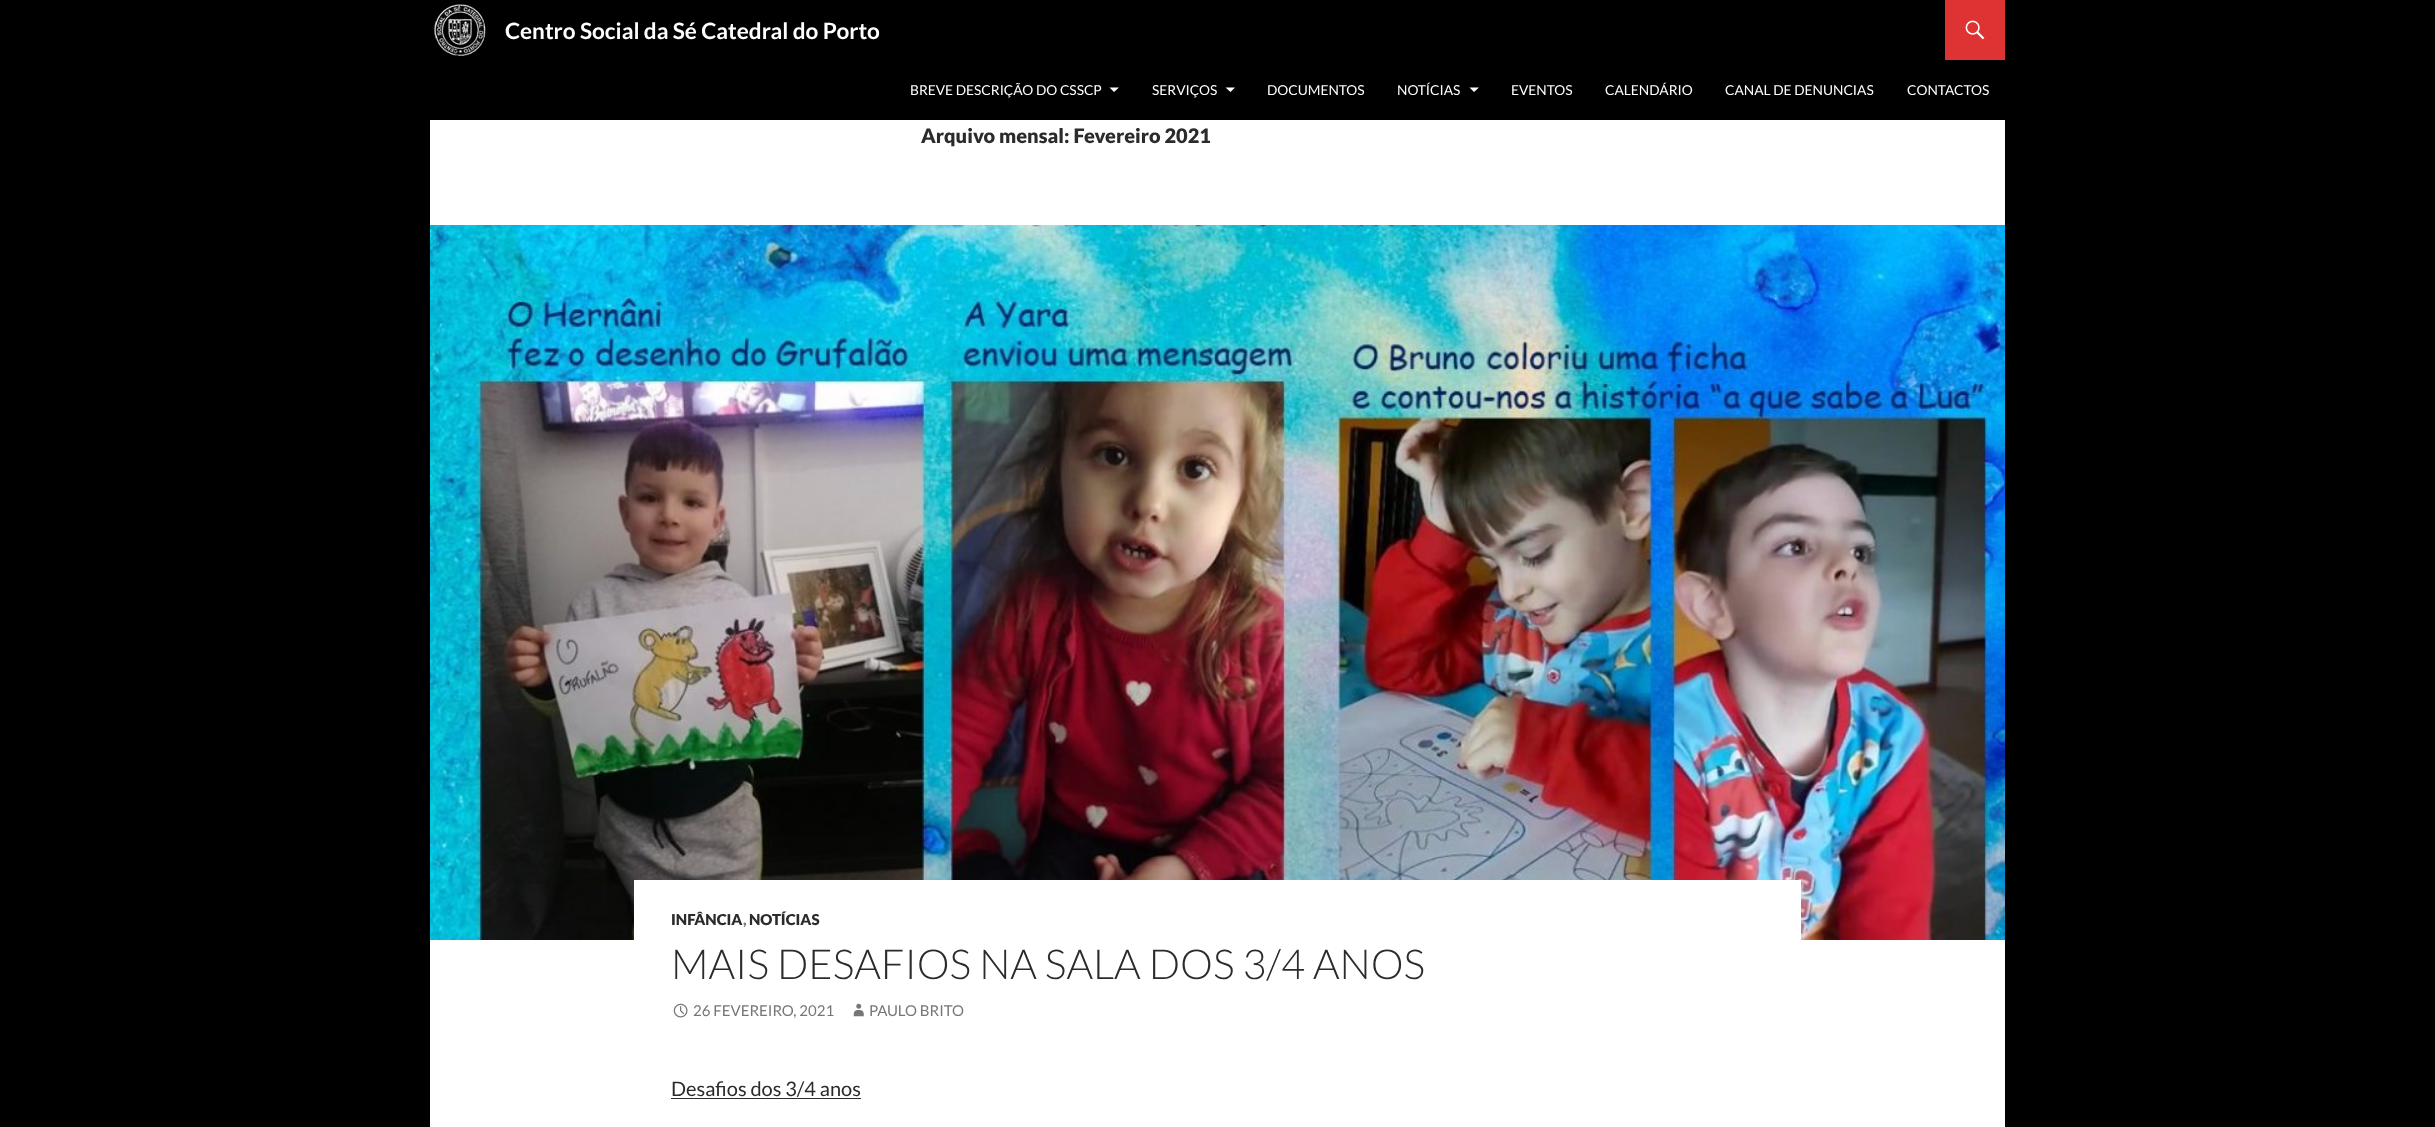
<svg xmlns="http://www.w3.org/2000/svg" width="2435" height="1127">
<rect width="100%" height="100%" fill="#000"/>
<rect x="430" y="120" width="1575" height="1007" fill="#fff"/>
<image x="434" y="4" width="52" height="52" href="media/1.png"/>
<text x="505" y="39" style="font-family:Lato;font-size:22.5px;font-weight:bold;fill:#fff">Centro Social da Sé Catedral do Porto</text>
<rect x="1945" width="60" height="60" fill="#d33"/>
<image x="1965" y="20" width="20" height="20" href="media/2.png"/>
<text x="910" y="95" style="font-family:Lato;font-size:13.75px;fill:#fff">BREVE DESCRIÇÃO DO CSSCP</text>
<path d="M1109.5 87.5l4.5 4.5l5-4.5z" fill="#fff"/>
<text x="1152" y="95" style="font-family:Lato;font-size:13.75px;fill:#fff">SERVIÇOS</text>
<path d="M1225.5 87.5l5 4.5l4.5-4.5z" fill="#fff"/>
<text x="1267" y="95" style="font-family:Lato;font-size:13.75px;fill:#fff">DOCUMENTOS</text>
<text x="1397" y="95" style="font-family:Lato;font-size:13.75px;fill:#fff">NOTÍCIAS</text>
<path d="M1469.5 87.5l4.5 4.5l5-4.5z" fill="#fff"/>
<text x="1511" y="95" style="font-family:Lato;font-size:13.75px;fill:#fff">EVENTOS</text>
<text x="1605" y="95" style="font-family:Lato;font-size:13.75px;fill:#fff">CALENDÁRIO</text>
<text x="1725" y="95" style="font-family:Lato;font-size:13.75px;fill:#fff">CANAL DE DENUNCIAS</text>
<text x="1907" y="95" style="font-family:Lato;font-size:13.75px;fill:#fff">CONTACTOS</text>
<text x="921" y="143" style="font-family:Lato;font-size:20px;font-weight:900;fill:#2b2b2b">Arquivo mensal: Fevereiro 2021</text>
<image x="430" y="225" width="1575" height="715" href="media/3.png"/>
<rect x="634" y="880" width="1167" height="60" fill="#fff"/>
<text x="671" y="925" style="font-family:Lato;font-size:15px;font-weight:900;fill:#2b2b2b">INFÂNCIA</text>
<text x="743" y="925" style="font-family:Lato;font-size:15px;font-weight:900;fill:#767676">,</text>
<text x="749" y="925" style="font-family:Lato;font-size:15px;font-weight:900;fill:#2b2b2b">NOTÍCIAS</text>
<text x="671" y="979" style="font-family:Lato;font-size:41.25px;font-weight:300;fill:#2b2b2b">MAIS DESAFIOS NA SALA DOS 3/4 ANOS</text>
<image x="673" y="1003" width="15" height="15" href="media/4.png"/>
<text x="693" y="1016" style="font-family:Lato;font-size:15px;fill:#767676">26 FEVEREIRO, 2021</text>
<image x="853" y="1003" width="11" height="14" href="media/5.png"/>
<text x="869" y="1016" style="font-family:Lato;font-size:15px;fill:#767676">PAULO BRITO</text>
<text x="671" y="1096" style="font-family:Lato;font-size:20px;fill:#2b2b2b">Desafios dos 3/4 anos</text>
<rect x="671" y="1098" width="190" height="1" fill="#2b2b2b"/>
</svg>
